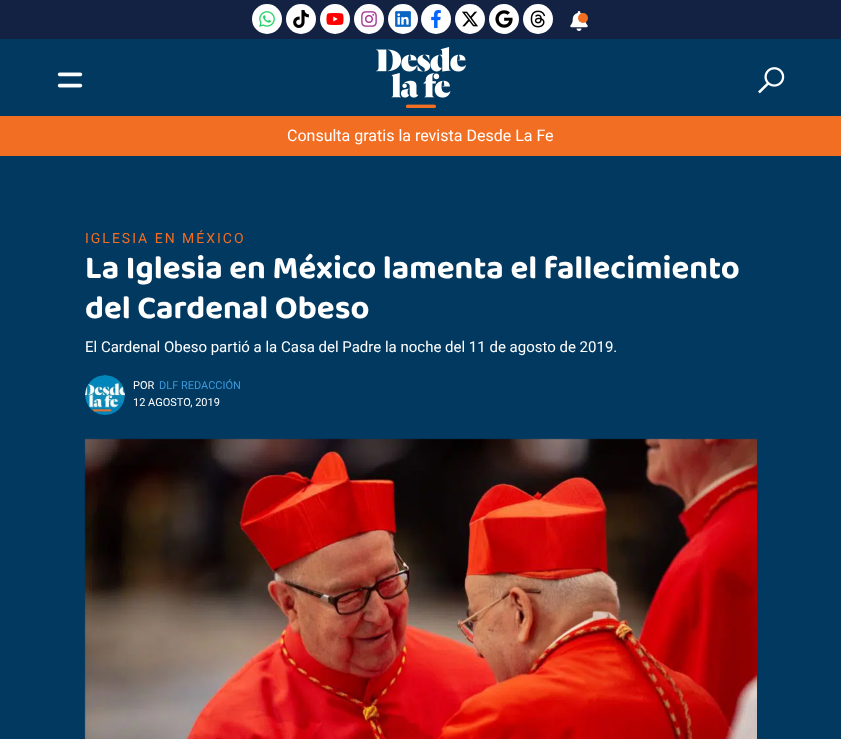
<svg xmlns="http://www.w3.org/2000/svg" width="841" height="739">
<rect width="100%" height="100%" fill="#132142"/>
<circle cx="267" cy="19" r="15" fill="#fff"/>
<image x="259" y="11" width="16" height="16" href="media/1.png"/>
<circle cx="301" cy="19" r="15" fill="#fff"/>
<image x="293" y="10" width="16" height="18" href="media/2.png"/>
<circle cx="335" cy="19" r="15" fill="#fff"/>
<image x="326" y="13" width="18" height="12" href="media/3.png"/>
<circle cx="369" cy="19" r="15" fill="#fff"/>
<image x="361" y="11" width="16" height="16" href="media/4.png"/>
<circle cx="403" cy="19" r="15" fill="#fff"/>
<image x="395" y="11" width="16" height="16" href="media/5.png"/>
<circle cx="436" cy="19" r="15" fill="#fff"/>
<image x="431" y="10" width="10" height="18" href="media/6.png"/>
<circle cx="470" cy="19" r="15" fill="#fff"/>
<image x="462" y="11" width="16" height="16" href="media/7.png"/>
<circle cx="504" cy="19" r="15" fill="#fff"/>
<image x="495" y="10" width="18" height="18" href="media/8.png"/>
<circle cx="538" cy="19" r="15" fill="#fff"/>
<image x="530" y="10" width="16" height="18" href="media/9.png"/>
<image x="570" y="11" width="18" height="20" href="media/10.png"/>
<circle cx="583" cy="18" r="5" fill="#f26e22"/>
<rect y="39" width="841" height="77" fill="#013960"/>
<image x="57" y="72" width="26" height="16" href="media/11.png"/>
<image x="376" y="47" width="90" height="61" href="media/12.png"/>
<image x="758" y="67" width="27" height="27" href="media/13.png"/>
<rect y="116" width="841" height="40" fill="#f26e22"/>
<text x="287" y="141" style="font-family:Roboto;font-size:16px;fill:#fff">Consulta gratis la revista Desde La Fe</text>
<rect y="156" width="841" height="583" fill="#013960"/>
<text x="85" y="243" style="font-family:Roboto;font-size:14px;letter-spacing:2px;fill:#f26e22">IGLESIA EN MÉXICO</text>
<text x="85" y="278" style="font-family:'Baloo Thambi 2';font-size:32.8px;font-weight:bold;fill:#fff">La Iglesia en México lamenta el fallecimiento</text>
<text x="85" y="318" style="font-family:'Baloo Thambi 2';font-size:32.8px;font-weight:bold;fill:#fff">del Cardenal Obeso</text>
<text x="85" y="352" style="font-family:Roboto;font-size:15px;fill:#fff">El Cardenal Obeso partió a la Casa del Padre la noche del 11 de agosto de 2019.</text>
<image x="85" y="375" width="40" height="40" href="media/14.png"/>
<text x="133" y="389" style="font-family:Roboto;font-size:11px;fill:#fff">POR</text>
<text x="159" y="389" style="font-family:Roboto;font-size:11px;fill:#3c9adb">DLF REDACCIÓN</text>
<text x="133" y="406" style="font-family:Roboto;font-size:11px;fill:#fff">12 AGOSTO, 2019</text>
<image x="84" y="438" width="673" height="301" href="media/15.png"/>
</svg>
